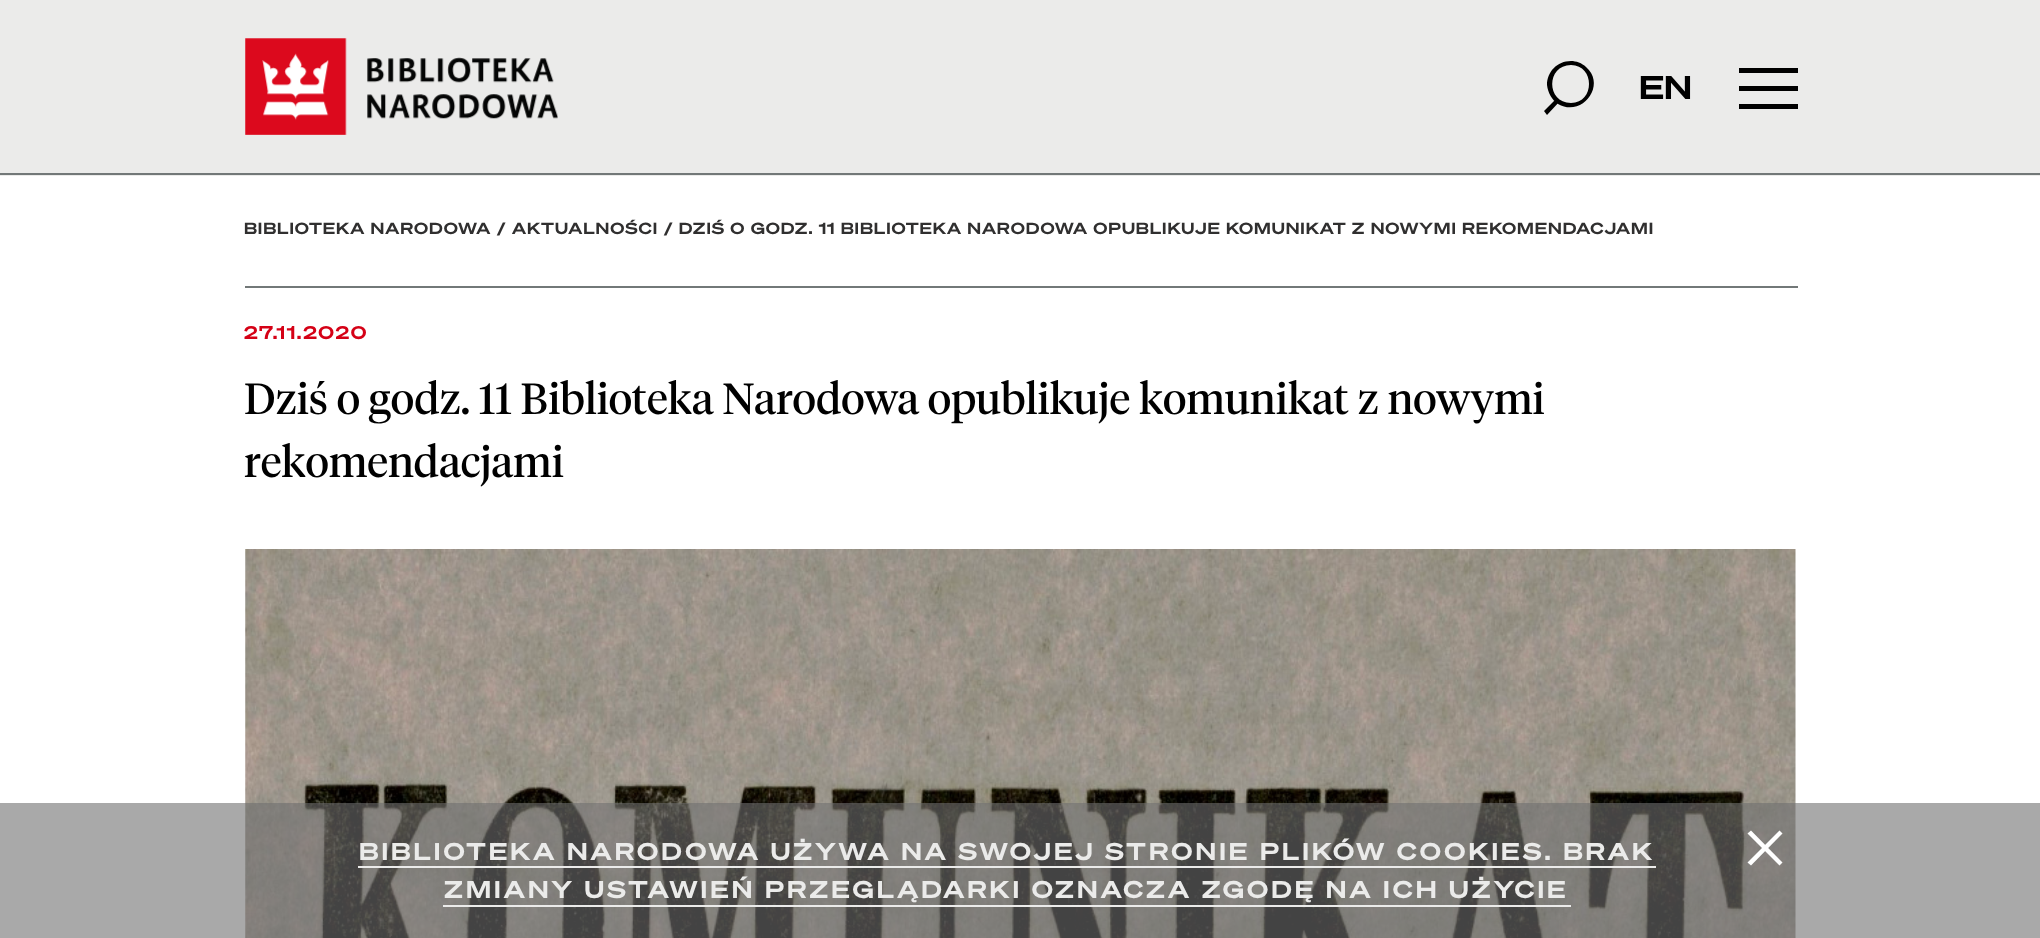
<svg xmlns="http://www.w3.org/2000/svg" width="2040" height="938">
<rect width="100%" height="100%" fill="#fff"/>
<rect width="2040" height="176" fill="#ebebea"/>
<rect y="173" width="2040" height="2" fill="#727878"/>
<image x="245" y="38" width="313" height="97" href="media/1.png"/>
<path d="M1557 98l-13 13l3 4l13-14zm14-37c-14 0-24 11-24 24c1 8 5 15 11 19c24 14 49-19 28-37c-4-4-10-6-15-6zm0 4c24 0 24 38 0 38c-25 0-25-38 0-38z" fill="#000"/>
<text x="1639" y="99" style="font-family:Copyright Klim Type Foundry;font-size:32px;font-weight:bold;fill:#000">EN</text>
<rect x="1739" y="68" width="59" height="5" fill="#000"/>
<rect x="1739" y="86" width="59" height="5" fill="#000"/>
<rect x="1739" y="104" width="59" height="5" fill="#000"/>
<rect x="245" y="286" width="1553" height="2" fill="#727878"/>
<text x="244" y="234" style="font-family:Copyright Klim Type Foundry;font-size:15.75px;font-weight:bold;letter-spacing:0.94px;fill:#302f2f">BIBLIOTEKA NARODOWA / AKTUALNOŚCI / DZIŚ O GODZ. 11 BIBLIOTEKA NARODOWA OPUBLIKUJE KOMUNIKAT Z NOWYMI REKOMENDACJAMI</text>
<text x="244" y="339" style="font-family:Copyright Klim Type Foundry;font-size:18px;font-weight:bold;letter-spacing:1.75px;fill:#d50116">27.11.2020</text>
<text x="244" y="414" style="font-family:Copyright Klim Type Foundry;font-size:43.3px;fill:#000">Dziś o godz. 11 Biblioteka Narodowa opublikuje komunikat z nowymi</text>
<text x="244" y="477" style="font-family:Copyright Klim Type Foundry;font-size:43.3px;fill:#000">rekomendacjami</text>
<image x="245" y="549" width="1551" height="389" href="media/2.png"/>
<rect y="803" width="2040" height="135" fill="#70707099"/>
<text x="359" y="860" style="font-family:Copyright Klim Type Foundry;font-size:23.62px;font-weight:bold;letter-spacing:3.07px;fill:#ebebea">BIBLIOTEKA NARODOWA UŻYWA NA SWOJEJ STRONIE PLIKÓW COOKIES. BRAK</text>
<rect x="358" y="866" width="1298" height="2" fill="#ebebea"/>
<path d="M1747.5 862.5l32-32l3 3l-31.5 32z" fill="#fff"/>
<path d="M1751 830.5l31.5 32l-3 3l-32-32z" fill="#fff"/>
<text x="444" y="898" style="font-family:Copyright Klim Type Foundry;font-size:23.62px;font-weight:bold;letter-spacing:3.07px;fill:#ebebea">ZMIANY USTAWIEŃ PRZEGLĄDARKI OZNACZA ZGODĘ NA ICH UŻYCIE</text>
<rect x="443" y="905" width="1128" height="2" fill="#ebebea"/>
</svg>
